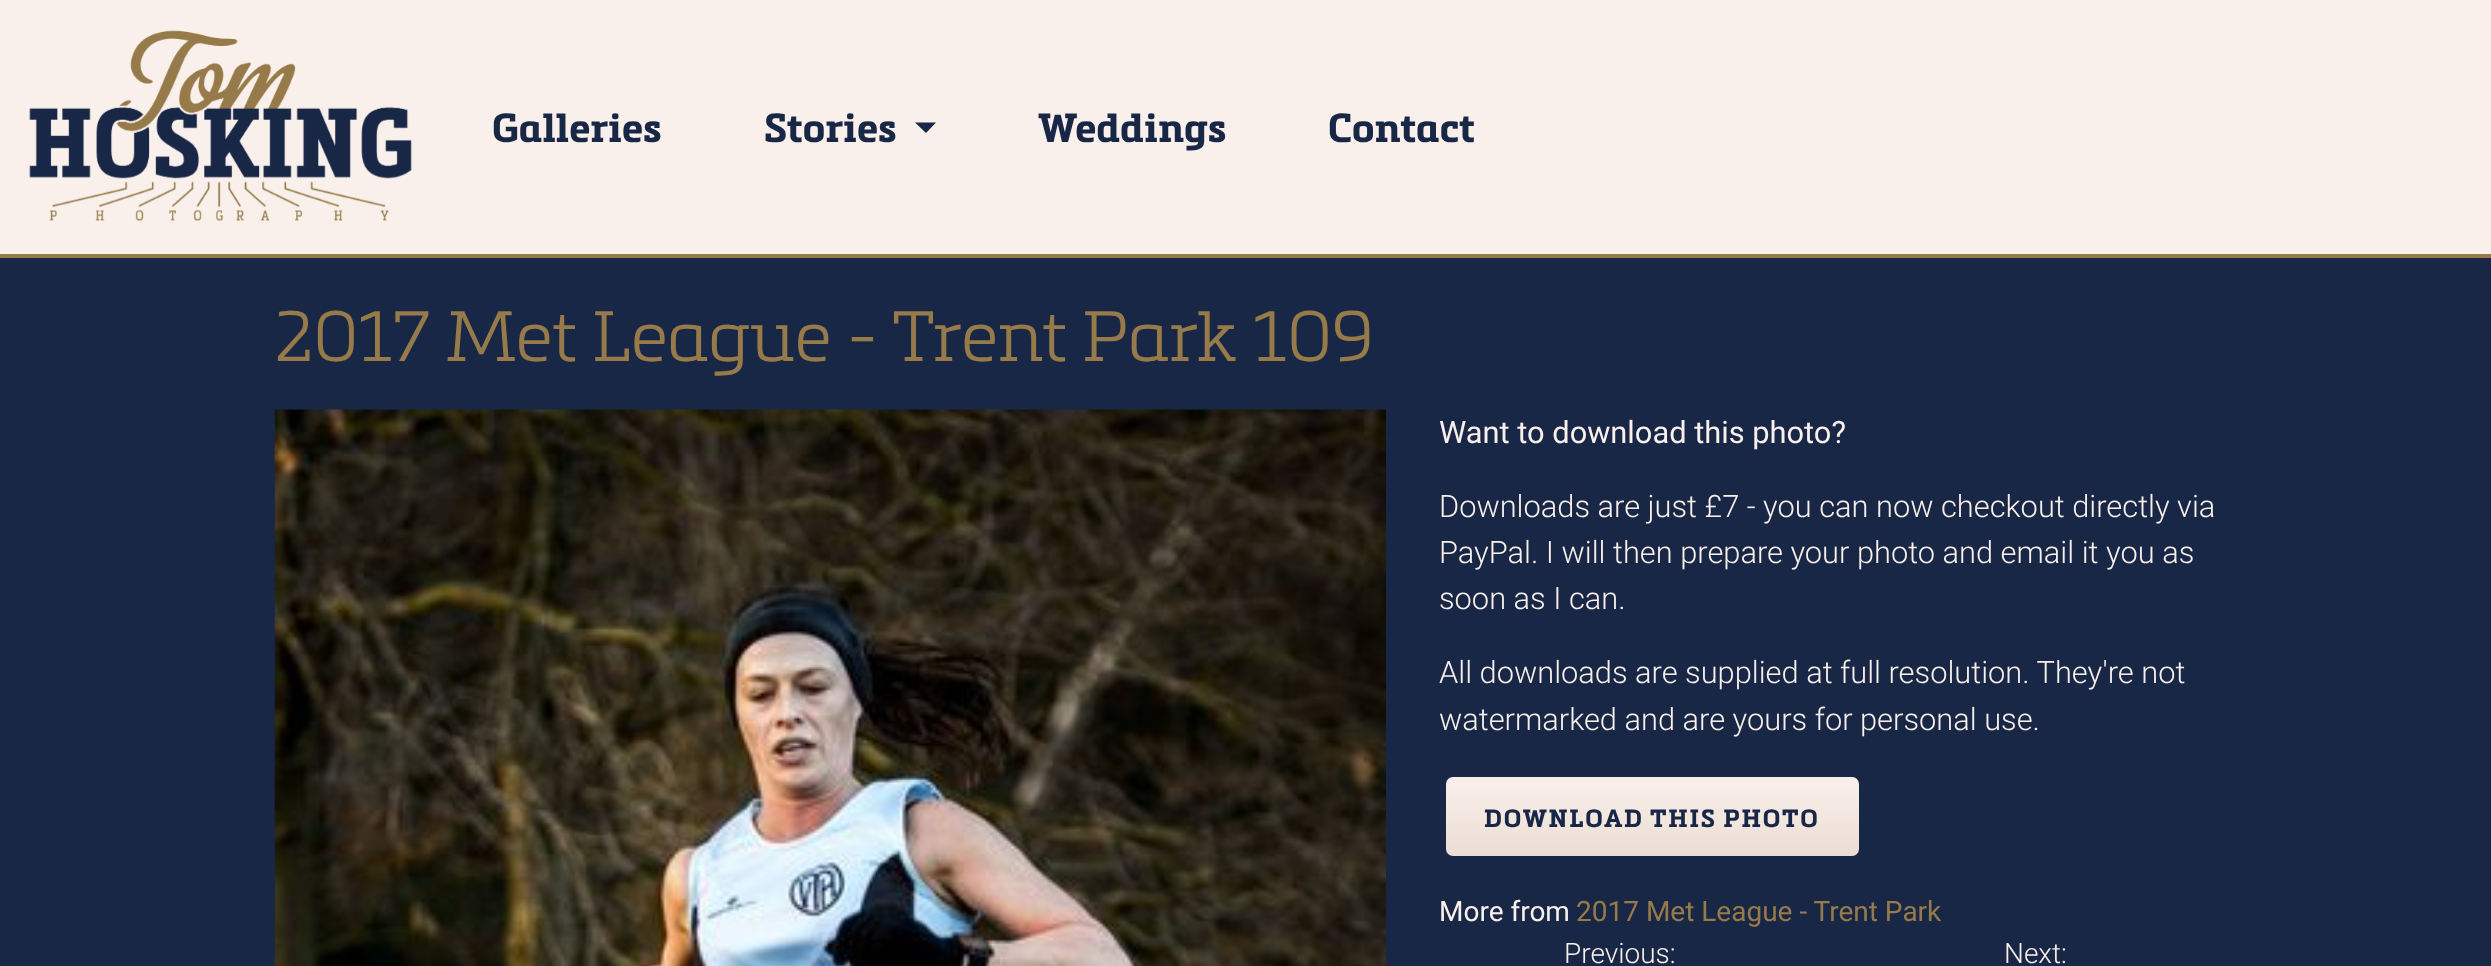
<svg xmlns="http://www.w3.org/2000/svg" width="2491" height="966">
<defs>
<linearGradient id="g1" gradientUnits="userSpaceOnUse" x1="1652" y1="777" x2="1652" y2="856"><stop offset="0" stop-color="#faf0eb"/><stop offset="1" stop-color="#ebddd4"/></linearGradient>
</defs>
<rect width="100%" height="100%" fill="#192747"/>
<rect width="2491" height="254" fill="#faf0eb"/>
<rect y="254" width="2491" height="4" fill="#967a49"/>
<image x="29" y="30" width="383" height="191" href="media/1.png"/>
<text x="492" y="142" style="font-family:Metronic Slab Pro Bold;font-size:40px;font-weight:bold;fill:#192747">Galleries</text>
<text x="764" y="142" style="font-family:Metronic Slab Pro Bold;font-size:40px;font-weight:bold;fill:#192747">Stories</text>
<path d="M915 122.5h21l-10 10.5z" fill="#192747"/>
<text x="1038" y="142" style="font-family:Metronic Slab Pro Bold;font-size:40px;font-weight:bold;fill:#192747">Weddings</text>
<text x="1328" y="142" style="font-family:Metronic Slab Pro Bold;font-size:40px;font-weight:bold;fill:#192747">Contact</text>
<text x="275" y="361" style="font-family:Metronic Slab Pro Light;font-size:70px;font-weight:300;fill:#967a49">2017 Met League - Trent Park 109</text>
<image x="274" y="409" width="1112" height="557" href="media/2.png"/>
<text x="1439" y="443" style="font-family:Roboto;font-size:30.8px;fill:#faf0eb">Want to download this photo?</text>
<text x="1439" y="517" style="font-family:Roboto;font-size:30.8px;font-weight:300;fill:#faf0eb">Downloads are just £7 - you can now checkout directly via</text>
<text x="1439" y="563" style="font-family:Roboto;font-size:30.8px;font-weight:300;fill:#faf0eb">PayPal. I will then prepare your photo and email it you as</text>
<text x="1439" y="609" style="font-family:Roboto;font-size:30.8px;font-weight:300;fill:#faf0eb">soon as I can.</text>
<text x="1439" y="683" style="font-family:Roboto;font-size:30.8px;font-weight:300;fill:#faf0eb">All downloads are supplied at full resolution. They're not</text>
<text x="1439" y="730" style="font-family:Roboto;font-size:30.8px;font-weight:300;fill:#faf0eb">watermarked and are yours for personal use.</text>
<rect x="1446" y="777" width="413" height="79" rx="7" fill="url(#g1)"/>
<text x="1484" y="827" style="font-family:Metronic Slab Pro Bold;font-size:24.5px;font-weight:bold;letter-spacing:1.75px;fill:#192747">DOWNLOAD THIS PHOTO</text>
<text x="1439" y="921" style="font-family:Roboto;font-size:28px;fill:#faf0eb">More from</text>
<text x="1576" y="921" style="font-family:Roboto;font-size:28px;fill:#967a49">2017 Met League - Trent Park</text>
<text x="1564" y="963" style="font-family:Roboto;font-size:28px;font-weight:300;fill:#faf0eb">Previous:</text>
<text x="2004" y="963" style="font-family:Roboto;font-size:28px;font-weight:300;fill:#faf0eb">Next:</text>
</svg>
